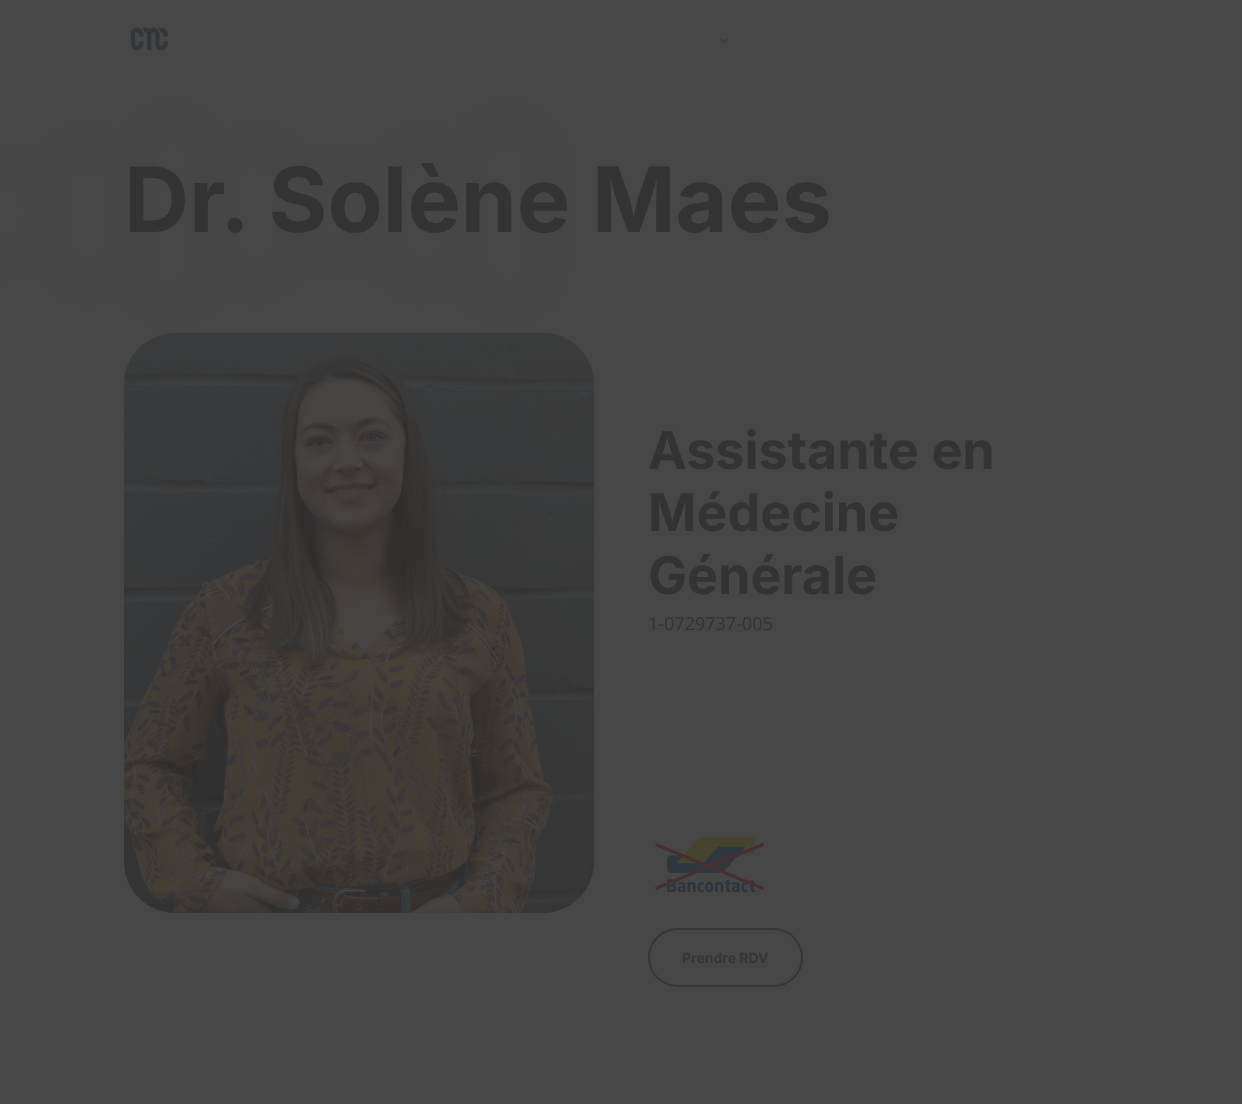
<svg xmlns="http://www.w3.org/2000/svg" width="1242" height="1104">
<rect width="100%" height="100%" fill="#474747"/>
<image x="130" y="27" width="38" height="24" href="media/1.png"/>
<image x="719" y="38" width="9" height="5" href="media/2.png"/>
<image x="0" y="100" width="570" height="226" href="media/3.png"/>
<text x="124" y="232" style="font-family:Inter;font-size:90px;font-weight:bold;fill:#333">Dr. Solène Maes</text>
<image x="124" y="333" width="470" height="580" href="media/4.png"/>
<text x="648" y="469" style="font-family:Inter;font-size:52px;font-weight:bold;fill:#333">Assistante en</text>
<text x="648" y="531" style="font-family:Inter;font-size:52px;font-weight:bold;fill:#333">Médecine</text>
<text x="648" y="594" style="font-family:Inter;font-size:52px;font-weight:bold;fill:#333">Générale</text>
<text x="648" y="630" style="font-family:Open Sans;font-size:18px;fill:#333">1-0729737-005</text>
<image x="648" y="830" width="124" height="70" href="media/5.png"/>
<rect x="649" y="929" width="153" height="57" rx="28.5" fill="none" stroke="#303839" stroke-width="2"/>
<text x="682" y="963" style="font-family:Inter;font-size:14px;font-weight:bold;fill:#303839">Prendre RDV</text>
<text x="468" y="756" style="font-family:Open Sans;font-size:14px;fill:#43413e">e</text>
</svg>
